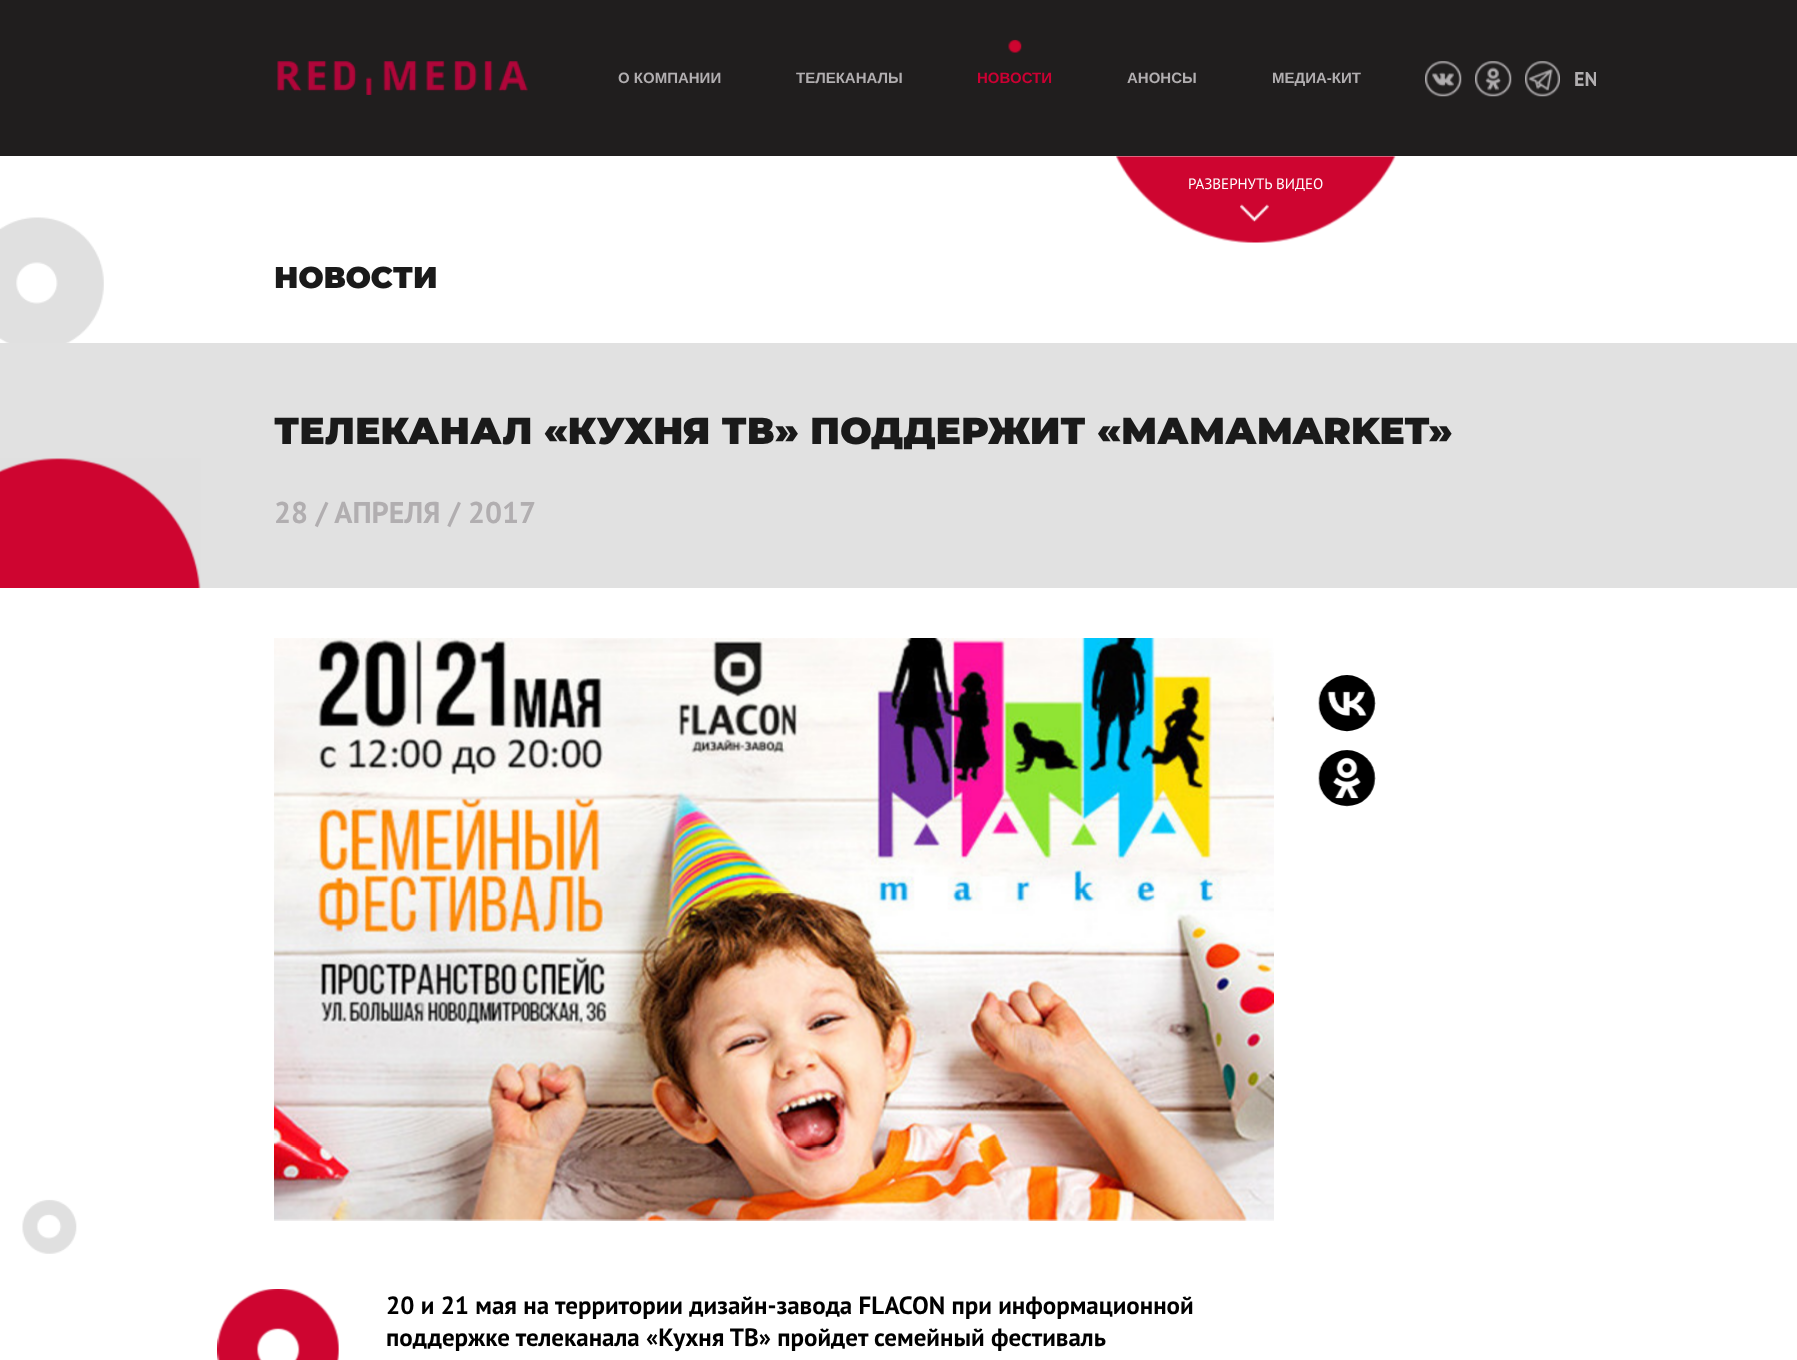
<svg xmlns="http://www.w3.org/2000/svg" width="1797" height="1360">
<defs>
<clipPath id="clip1"><rect x="1574" y="61" width="22" height="35"/></clipPath>
</defs>
<rect width="100%" height="100%" fill="#fff"/>
<image x="0" y="217" width="104" height="1037" href="media/1.png"/>
<rect width="1797" height="156" fill="#201e1e"/>
<image x="277" y="61" width="251" height="34" href="media/2.png"/>
<text x="618" y="83" style="font-family:Liberation Sans;font-size:15px;font-weight:bold;fill:#b1aeb0">О КОМПАНИИ</text>
<text x="796" y="83" style="font-family:Liberation Sans;font-size:15px;font-weight:bold;fill:#b1aeb0">ТЕЛЕКАНАЛЫ</text>
<image x="1008" y="39" width="14" height="14" href="media/3.png"/>
<text x="977" y="83" style="font-family:Liberation Sans;font-size:15px;font-weight:bold;fill:#c03">НОВОСТИ</text>
<text x="1127" y="83" style="font-family:Liberation Sans;font-size:15px;font-weight:bold;fill:#b1aeb0">АНОНСЫ</text>
<text x="1272" y="83" style="font-family:Liberation Sans;font-size:15px;font-weight:bold;fill:#b1aeb0">МЕДИА-КИТ</text>
<image x="1425" y="61" width="37" height="36" href="media/4.png"/>
<image x="1475" y="61" width="37" height="36" href="media/5.png"/>
<image x="1525" y="61" width="35" height="36" href="media/6.png"/>
<g clip-path="url(#clip1)">
<text x="1574" y="86" style="font-family:PT Sans;font-size:20px;font-weight:bold;fill:#b1aeb0">EN</text>
</g>
<image x="1116" y="156" width="280" height="87" href="media/7.png"/>
<text x="1188" y="189" style="font-family:PT Sans;font-size:15px;fill:#fff">РАЗВЕРНУТЬ ВИДЕО</text>
<image x="1240" y="204" width="29" height="18" href="media/8.png"/>
<text x="274" y="288" style="font-family:Montserrat;font-size:30px;font-weight:900;fill:#1a1a1a">НОВОСТИ</text>
<rect y="343" width="1797" height="245" fill="#e1e1e1"/>
<text x="274" y="444" style="font-family:Montserrat;font-size:37.5px;font-weight:900;fill:#1a1a1a">ТЕЛЕКАНАЛ «КУХНЯ ТВ» ПОДДЕРЖИТ «МАМАMARKET»</text>
<image x="0" y="458" width="201" height="130" href="media/9.png"/>
<text x="274" y="523" style="font-family:PT Sans;font-size:30px;font-weight:bold;fill:#b1aeb0">28 / АПРЕЛЯ / 2017</text>
<image x="274" y="638" width="1000" height="583" href="media/10.png"/>
<image x="1318" y="675" width="58" height="57" href="media/11.png"/>
<image x="1318" y="750" width="58" height="57" href="media/12.png"/>
<image x="217" y="1289" width="122" height="71" href="media/13.png"/>
<text x="386" y="1314" style="font-family:PT Sans;font-size:25px;font-weight:bold;fill:#000">20 и 21 мая на территории дизайн-завода FLACON при информационной</text>
<text x="386" y="1346" style="font-family:PT Sans;font-size:25px;font-weight:bold;fill:#000">поддержке телеканала «Кухня ТВ» пройдет семейный фестиваль</text>
</svg>
